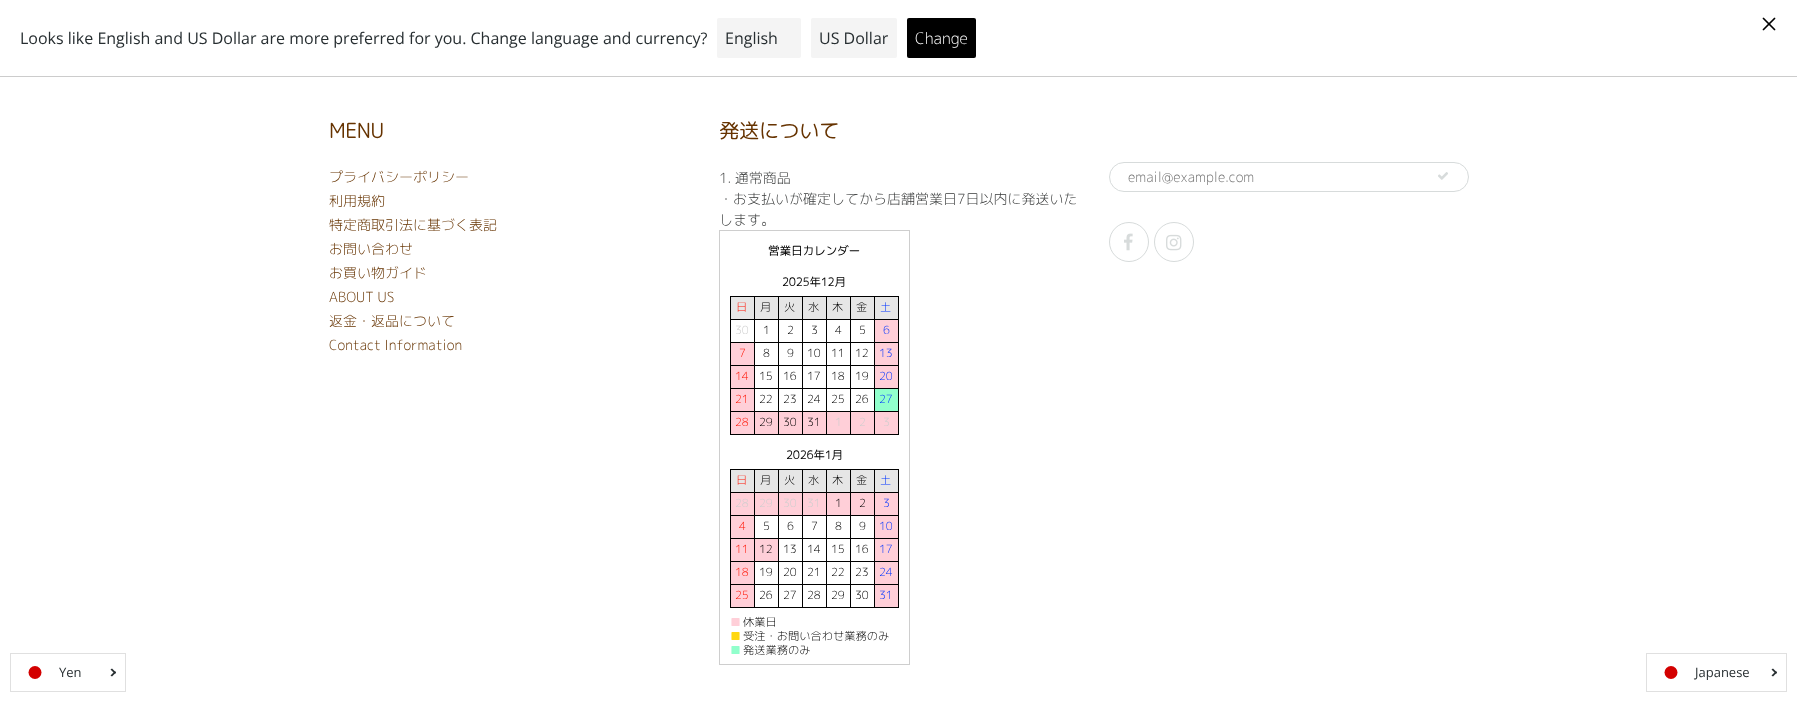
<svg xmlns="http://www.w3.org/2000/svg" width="1797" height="702">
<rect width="100%" height="100%" fill="#fff"/>
<rect y="76" width="1797" height="1" fill="#ccc"/>
<image x="1762" y="17" width="14" height="14" href="media/1.png"/>
<text x="20" y="44" style="font-family:Open Sans;font-size:16px;fill:#272e31">Looks like English and US Dollar are more preferred for you. Change language and currency?</text>
<rect x="717" y="18" width="84" height="40" rx="2" fill="#f4f4f4"/>
<text x="725" y="44" style="font-family:Open Sans;font-size:16px;fill:#272e31">English</text>
<rect x="811" y="18" width="86" height="40" rx="2" fill="#f4f4f4"/>
<text x="819" y="44" style="font-family:Open Sans;font-size:16px;fill:#272e31">US Dollar</text>
<rect x="907" y="18" width="69" height="40" rx="2" fill="#000"/>
<text x="915" y="44" style="font-family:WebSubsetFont;font-size:16px;font-weight:300;fill:#fff">Change</text>
<text x="329" y="138" style="font-family:WebSubsetFont;font-size:20px;font-weight:bold;fill:#630">MENU</text>
<text x="329" y="182" style="font-family:WebSubsetFont;font-size:14px;font-weight:300;fill:#630">プライバシーポリシー</text>
<text x="329" y="206" style="font-family:WebSubsetFont;font-size:14px;font-weight:300;fill:#630">利用規約</text>
<text x="329" y="230" style="font-family:WebSubsetFont;font-size:14px;font-weight:300;fill:#630">特定商取引法に基づく表記</text>
<text x="329" y="254" style="font-family:WebSubsetFont;font-size:14px;font-weight:300;fill:#630">お問い合わせ</text>
<text x="329" y="278" style="font-family:WebSubsetFont;font-size:14px;font-weight:300;fill:#630">お買い物ガイド</text>
<text x="329" y="302" style="font-family:WebSubsetFont;font-size:14px;font-weight:300;fill:#630">ABOUT US</text>
<text x="329" y="326" style="font-family:WebSubsetFont;font-size:14px;font-weight:300;fill:#630">返金・返品について</text>
<text x="329" y="350" style="font-family:WebSubsetFont;font-size:14px;font-weight:300;fill:#630">Contact Information</text>
<text x="719" y="138" style="font-family:WebSubsetFont;font-size:20px;font-weight:bold;fill:#630">発送について</text>
<text x="719" y="183" style="font-family:WebSubsetFont;font-size:14px;font-weight:300;fill:#393b3b">1. 通常商品</text>
<text x="719" y="204" style="font-family:WebSubsetFont;font-size:14px;font-weight:300;fill:#393b3b">・お支払いが確定してから店舗営業日7日以内に発送いた</text>
<text x="719" y="225" style="font-family:WebSubsetFont;font-size:14px;font-weight:300;fill:#393b3b">します。</text>
<rect x="719" y="230" width="191" height="1" fill="#cecece"/>
<rect x="909" y="230" width="1" height="435" fill="#cecece"/>
<rect x="719" y="664" width="191" height="1" fill="#cecece"/>
<rect x="719" y="230" width="1" height="435" fill="#cecece"/>
<text x="768" y="255" style="font-family:WebSubsetFont;font-size:11.5px;font-weight:bold;fill:#000">営業日カレンダー</text>
<text x="782" y="286" style="font-family:WebSubsetFont;font-size:11.25px;font-weight:bold;fill:#000">2025年12月</text>
<rect x="731" y="297" width="23" height="22" fill="#e6e6e6"/>
<rect x="874" y="296" width="25" height="1" fill="#000"/>
<rect x="874" y="319" width="25" height="1" fill="#000"/>
<rect x="874" y="342" width="25" height="1" fill="#000"/>
<rect x="874" y="365" width="25" height="1" fill="#000"/>
<rect x="874" y="388" width="25" height="1" fill="#000"/>
<rect x="874" y="411" width="25" height="1" fill="#000"/>
<rect x="898" y="411" width="1" height="24" fill="#000"/>
<rect x="874" y="434" width="25" height="1" fill="#000"/>
<rect x="874" y="411" width="1" height="24" fill="#000"/>
<rect x="850" y="411" width="25" height="1" fill="#000"/>
<rect x="874" y="388" width="1" height="24" fill="#000"/>
<rect x="850" y="388" width="25" height="1" fill="#000"/>
<rect x="874" y="365" width="1" height="24" fill="#000"/>
<rect x="850" y="365" width="25" height="1" fill="#000"/>
<rect x="874" y="342" width="1" height="24" fill="#000"/>
<rect x="850" y="342" width="25" height="1" fill="#000"/>
<rect x="874" y="319" width="1" height="24" fill="#000"/>
<rect x="850" y="319" width="25" height="1" fill="#000"/>
<rect x="874" y="296" width="1" height="24" fill="#000"/>
<rect x="850" y="296" width="25" height="1" fill="#000"/>
<rect x="850" y="434" width="25" height="1" fill="#000"/>
<rect x="850" y="411" width="1" height="24" fill="#000"/>
<rect x="826" y="411" width="25" height="1" fill="#000"/>
<rect x="850" y="388" width="1" height="24" fill="#000"/>
<rect x="826" y="388" width="25" height="1" fill="#000"/>
<rect x="850" y="365" width="1" height="24" fill="#000"/>
<rect x="826" y="365" width="25" height="1" fill="#000"/>
<rect x="850" y="342" width="1" height="24" fill="#000"/>
<rect x="826" y="342" width="25" height="1" fill="#000"/>
<rect x="850" y="319" width="1" height="24" fill="#000"/>
<rect x="826" y="319" width="25" height="1" fill="#000"/>
<rect x="850" y="296" width="1" height="24" fill="#000"/>
<rect x="826" y="296" width="25" height="1" fill="#000"/>
<rect x="826" y="434" width="25" height="1" fill="#000"/>
<rect x="826" y="411" width="1" height="24" fill="#000"/>
<rect x="802" y="411" width="25" height="1" fill="#000"/>
<rect x="826" y="388" width="1" height="24" fill="#000"/>
<rect x="802" y="388" width="25" height="1" fill="#000"/>
<rect x="826" y="365" width="1" height="24" fill="#000"/>
<rect x="802" y="365" width="25" height="1" fill="#000"/>
<rect x="826" y="342" width="1" height="24" fill="#000"/>
<rect x="802" y="342" width="25" height="1" fill="#000"/>
<rect x="826" y="319" width="1" height="24" fill="#000"/>
<rect x="802" y="319" width="25" height="1" fill="#000"/>
<rect x="826" y="296" width="1" height="24" fill="#000"/>
<rect x="802" y="296" width="25" height="1" fill="#000"/>
<rect x="802" y="434" width="25" height="1" fill="#000"/>
<rect x="802" y="411" width="1" height="24" fill="#000"/>
<rect x="778" y="411" width="25" height="1" fill="#000"/>
<rect x="802" y="388" width="1" height="24" fill="#000"/>
<rect x="778" y="388" width="25" height="1" fill="#000"/>
<rect x="802" y="365" width="1" height="24" fill="#000"/>
<rect x="778" y="365" width="25" height="1" fill="#000"/>
<rect x="802" y="342" width="1" height="24" fill="#000"/>
<rect x="778" y="342" width="25" height="1" fill="#000"/>
<rect x="802" y="319" width="1" height="24" fill="#000"/>
<rect x="778" y="319" width="25" height="1" fill="#000"/>
<rect x="802" y="296" width="1" height="24" fill="#000"/>
<rect x="778" y="296" width="25" height="1" fill="#000"/>
<rect x="778" y="434" width="25" height="1" fill="#000"/>
<rect x="778" y="411" width="1" height="24" fill="#000"/>
<rect x="754" y="411" width="25" height="1" fill="#000"/>
<rect x="778" y="388" width="1" height="24" fill="#000"/>
<rect x="754" y="388" width="25" height="1" fill="#000"/>
<rect x="778" y="365" width="1" height="24" fill="#000"/>
<rect x="754" y="365" width="25" height="1" fill="#000"/>
<rect x="778" y="342" width="1" height="24" fill="#000"/>
<rect x="754" y="342" width="25" height="1" fill="#000"/>
<rect x="778" y="319" width="1" height="24" fill="#000"/>
<rect x="754" y="319" width="25" height="1" fill="#000"/>
<rect x="778" y="296" width="1" height="24" fill="#000"/>
<rect x="754" y="296" width="25" height="1" fill="#000"/>
<rect x="754" y="434" width="25" height="1" fill="#000"/>
<rect x="754" y="411" width="1" height="24" fill="#000"/>
<rect x="730" y="411" width="25" height="1" fill="#000"/>
<rect x="754" y="388" width="1" height="24" fill="#000"/>
<rect x="730" y="388" width="25" height="1" fill="#000"/>
<rect x="754" y="365" width="1" height="24" fill="#000"/>
<rect x="730" y="365" width="25" height="1" fill="#000"/>
<rect x="754" y="342" width="1" height="24" fill="#000"/>
<rect x="730" y="342" width="25" height="1" fill="#000"/>
<rect x="754" y="319" width="1" height="24" fill="#000"/>
<rect x="730" y="319" width="25" height="1" fill="#000"/>
<rect x="754" y="296" width="1" height="24" fill="#000"/>
<rect x="730" y="296" width="25" height="1" fill="#000"/>
<rect x="730" y="434" width="25" height="1" fill="#000"/>
<rect x="730" y="411" width="1" height="24" fill="#000"/>
<rect x="730" y="388" width="1" height="24" fill="#000"/>
<rect x="730" y="365" width="1" height="24" fill="#000"/>
<rect x="730" y="342" width="1" height="24" fill="#000"/>
<rect x="730" y="319" width="1" height="24" fill="#000"/>
<rect x="730" y="296" width="1" height="24" fill="#000"/>
<text x="736" y="311" style="font-family:WebSubsetFont;font-size:11.25px;font-weight:300;fill:#ff1302">日</text>
<rect x="755" y="297" width="23" height="22" fill="#e6e6e6"/>
<text x="760" y="311" style="font-family:WebSubsetFont;font-size:11.25px;font-weight:300;fill:#000">月</text>
<rect x="779" y="297" width="23" height="22" fill="#e6e6e6"/>
<text x="784" y="311" style="font-family:WebSubsetFont;font-size:11.25px;font-weight:300;fill:#000">火</text>
<rect x="803" y="297" width="23" height="22" fill="#e6e6e6"/>
<text x="808" y="311" style="font-family:WebSubsetFont;font-size:11.25px;font-weight:300;fill:#000">水</text>
<rect x="827" y="297" width="23" height="22" fill="#e6e6e6"/>
<text x="832" y="311" style="font-family:WebSubsetFont;font-size:11.25px;font-weight:300;fill:#000">木</text>
<rect x="851" y="297" width="23" height="22" fill="#e6e6e6"/>
<text x="856" y="311" style="font-family:WebSubsetFont;font-size:11.25px;font-weight:300;fill:#000">金</text>
<rect x="875" y="297" width="23" height="22" fill="#e6e6e6"/>
<rect x="898" y="388" width="1" height="24" fill="#000"/>
<rect x="898" y="365" width="1" height="24" fill="#000"/>
<rect x="898" y="342" width="1" height="24" fill="#000"/>
<rect x="898" y="319" width="1" height="24" fill="#000"/>
<rect x="898" y="296" width="1" height="24" fill="#000"/>
<text x="880" y="311" style="font-family:WebSubsetFont;font-size:11.25px;font-weight:300;fill:#0235ff">土</text>
<text x="735" y="334" style="font-family:WebSubsetFont;font-size:11.25px;font-weight:300;fill:#cecece">30</text>
<text x="763" y="334" style="font-family:WebSubsetFont;font-size:11.25px;font-weight:300;fill:#000">1</text>
<text x="787" y="334" style="font-family:WebSubsetFont;font-size:11.25px;font-weight:300;fill:#000">2</text>
<text x="811" y="334" style="font-family:WebSubsetFont;font-size:11.25px;font-weight:300;fill:#000">3</text>
<text x="835" y="334" style="font-family:WebSubsetFont;font-size:11.25px;font-weight:300;fill:#000">4</text>
<text x="859" y="334" style="font-family:WebSubsetFont;font-size:11.25px;font-weight:300;fill:#000">5</text>
<rect x="875" y="320" width="23" height="22" fill="#ffcfd8"/>
<text x="883" y="334" style="font-family:WebSubsetFont;font-size:11.25px;font-weight:300;fill:#0235ff">6</text>
<rect x="731" y="343" width="23" height="22" fill="#ffcfd8"/>
<text x="739" y="357" style="font-family:WebSubsetFont;font-size:11.25px;font-weight:300;fill:#ff1302">7</text>
<text x="763" y="357" style="font-family:WebSubsetFont;font-size:11.25px;font-weight:300;fill:#000">8</text>
<text x="787" y="357" style="font-family:WebSubsetFont;font-size:11.25px;font-weight:300;fill:#000">9</text>
<text x="807" y="357" style="font-family:WebSubsetFont;font-size:11.25px;font-weight:300;fill:#000">10</text>
<text x="831" y="357" style="font-family:WebSubsetFont;font-size:11.25px;font-weight:300;fill:#000">11</text>
<text x="855" y="357" style="font-family:WebSubsetFont;font-size:11.25px;font-weight:300;fill:#000">12</text>
<rect x="875" y="343" width="23" height="22" fill="#ffcfd8"/>
<text x="879" y="357" style="font-family:WebSubsetFont;font-size:11.25px;font-weight:300;fill:#0235ff">13</text>
<rect x="731" y="366" width="23" height="22" fill="#ffcfd8"/>
<text x="735" y="380" style="font-family:WebSubsetFont;font-size:11.25px;font-weight:300;fill:#ff1302">14</text>
<text x="759" y="380" style="font-family:WebSubsetFont;font-size:11.25px;font-weight:300;fill:#000">15</text>
<text x="783" y="380" style="font-family:WebSubsetFont;font-size:11.25px;font-weight:300;fill:#000">16</text>
<text x="807" y="380" style="font-family:WebSubsetFont;font-size:11.25px;font-weight:300;fill:#000">17</text>
<text x="831" y="380" style="font-family:WebSubsetFont;font-size:11.25px;font-weight:300;fill:#000">18</text>
<text x="855" y="380" style="font-family:WebSubsetFont;font-size:11.25px;font-weight:300;fill:#000">19</text>
<rect x="875" y="366" width="23" height="22" fill="#ffcfd8"/>
<text x="879" y="380" style="font-family:WebSubsetFont;font-size:11.25px;font-weight:300;fill:#0235ff">20</text>
<rect x="731" y="389" width="23" height="22" fill="#ffcfd8"/>
<text x="735" y="403" style="font-family:WebSubsetFont;font-size:11.25px;font-weight:300;fill:#ff1302">21</text>
<text x="759" y="403" style="font-family:WebSubsetFont;font-size:11.25px;font-weight:300;fill:#000">22</text>
<text x="783" y="403" style="font-family:WebSubsetFont;font-size:11.25px;font-weight:300;fill:#000">23</text>
<text x="807" y="403" style="font-family:WebSubsetFont;font-size:11.25px;font-weight:300;fill:#000">24</text>
<text x="831" y="403" style="font-family:WebSubsetFont;font-size:11.25px;font-weight:300;fill:#000">25</text>
<text x="855" y="403" style="font-family:WebSubsetFont;font-size:11.25px;font-weight:300;fill:#000">26</text>
<rect x="875" y="389" width="23" height="22" fill="#91ffcc"/>
<text x="879" y="403" style="font-family:WebSubsetFont;font-size:11.25px;font-weight:300;fill:#0235ff">27</text>
<rect x="731" y="412" width="23" height="22" fill="#ffcfd8"/>
<text x="735" y="426" style="font-family:WebSubsetFont;font-size:11.25px;font-weight:300;fill:#ff1302">28</text>
<rect x="755" y="412" width="23" height="22" fill="#ffcfd8"/>
<text x="759" y="426" style="font-family:WebSubsetFont;font-size:11.25px;font-weight:300;fill:#000">29</text>
<rect x="779" y="412" width="23" height="22" fill="#ffcfd8"/>
<text x="783" y="426" style="font-family:WebSubsetFont;font-size:11.25px;font-weight:300;fill:#000">30</text>
<rect x="803" y="412" width="23" height="22" fill="#ffcfd8"/>
<text x="807" y="426" style="font-family:WebSubsetFont;font-size:11.25px;font-weight:300;fill:#000">31</text>
<rect x="827" y="412" width="23" height="22" fill="#ffcfd8"/>
<text x="835" y="426" style="font-family:WebSubsetFont;font-size:11.25px;font-weight:300;fill:#cecece">1</text>
<rect x="851" y="412" width="23" height="22" fill="#ffcfd8"/>
<text x="859" y="426" style="font-family:WebSubsetFont;font-size:11.25px;font-weight:300;fill:#cecece">2</text>
<rect x="875" y="412" width="23" height="22" fill="#ffcfd8"/>
<text x="883" y="426" style="font-family:WebSubsetFont;font-size:11.25px;font-weight:300;fill:#cecece">3</text>
<text x="786" y="459" style="font-family:WebSubsetFont;font-size:11.25px;font-weight:bold;fill:#000">2026年1月</text>
<rect x="731" y="470" width="23" height="22" fill="#e6e6e6"/>
<rect x="874" y="469" width="25" height="1" fill="#000"/>
<rect x="874" y="492" width="25" height="1" fill="#000"/>
<rect x="874" y="515" width="25" height="1" fill="#000"/>
<rect x="874" y="538" width="25" height="1" fill="#000"/>
<rect x="874" y="561" width="25" height="1" fill="#000"/>
<rect x="874" y="584" width="25" height="1" fill="#000"/>
<rect x="898" y="584" width="1" height="24" fill="#000"/>
<rect x="874" y="607" width="25" height="1" fill="#000"/>
<rect x="874" y="584" width="1" height="24" fill="#000"/>
<rect x="850" y="584" width="25" height="1" fill="#000"/>
<rect x="874" y="561" width="1" height="24" fill="#000"/>
<rect x="850" y="561" width="25" height="1" fill="#000"/>
<rect x="874" y="538" width="1" height="24" fill="#000"/>
<rect x="850" y="538" width="25" height="1" fill="#000"/>
<rect x="874" y="515" width="1" height="24" fill="#000"/>
<rect x="850" y="515" width="25" height="1" fill="#000"/>
<rect x="874" y="492" width="1" height="24" fill="#000"/>
<rect x="850" y="492" width="25" height="1" fill="#000"/>
<rect x="874" y="469" width="1" height="24" fill="#000"/>
<rect x="850" y="469" width="25" height="1" fill="#000"/>
<rect x="850" y="607" width="25" height="1" fill="#000"/>
<rect x="850" y="584" width="1" height="24" fill="#000"/>
<rect x="826" y="584" width="25" height="1" fill="#000"/>
<rect x="850" y="561" width="1" height="24" fill="#000"/>
<rect x="826" y="561" width="25" height="1" fill="#000"/>
<rect x="850" y="538" width="1" height="24" fill="#000"/>
<rect x="826" y="538" width="25" height="1" fill="#000"/>
<rect x="850" y="515" width="1" height="24" fill="#000"/>
<rect x="826" y="515" width="25" height="1" fill="#000"/>
<rect x="850" y="492" width="1" height="24" fill="#000"/>
<rect x="826" y="492" width="25" height="1" fill="#000"/>
<rect x="850" y="469" width="1" height="24" fill="#000"/>
<rect x="826" y="469" width="25" height="1" fill="#000"/>
<rect x="826" y="607" width="25" height="1" fill="#000"/>
<rect x="826" y="584" width="1" height="24" fill="#000"/>
<rect x="802" y="584" width="25" height="1" fill="#000"/>
<rect x="826" y="561" width="1" height="24" fill="#000"/>
<rect x="802" y="561" width="25" height="1" fill="#000"/>
<rect x="826" y="538" width="1" height="24" fill="#000"/>
<rect x="802" y="538" width="25" height="1" fill="#000"/>
<rect x="826" y="515" width="1" height="24" fill="#000"/>
<rect x="802" y="515" width="25" height="1" fill="#000"/>
<rect x="826" y="492" width="1" height="24" fill="#000"/>
<rect x="802" y="492" width="25" height="1" fill="#000"/>
<rect x="826" y="469" width="1" height="24" fill="#000"/>
<rect x="802" y="469" width="25" height="1" fill="#000"/>
<rect x="802" y="607" width="25" height="1" fill="#000"/>
<rect x="802" y="584" width="1" height="24" fill="#000"/>
<rect x="778" y="584" width="25" height="1" fill="#000"/>
<rect x="802" y="561" width="1" height="24" fill="#000"/>
<rect x="778" y="561" width="25" height="1" fill="#000"/>
<rect x="802" y="538" width="1" height="24" fill="#000"/>
<rect x="778" y="538" width="25" height="1" fill="#000"/>
<rect x="802" y="515" width="1" height="24" fill="#000"/>
<rect x="778" y="515" width="25" height="1" fill="#000"/>
<rect x="802" y="492" width="1" height="24" fill="#000"/>
<rect x="778" y="492" width="25" height="1" fill="#000"/>
<rect x="802" y="469" width="1" height="24" fill="#000"/>
<rect x="778" y="469" width="25" height="1" fill="#000"/>
<rect x="778" y="607" width="25" height="1" fill="#000"/>
<rect x="778" y="584" width="1" height="24" fill="#000"/>
<rect x="754" y="584" width="25" height="1" fill="#000"/>
<rect x="778" y="561" width="1" height="24" fill="#000"/>
<rect x="754" y="561" width="25" height="1" fill="#000"/>
<rect x="778" y="538" width="1" height="24" fill="#000"/>
<rect x="754" y="538" width="25" height="1" fill="#000"/>
<rect x="778" y="515" width="1" height="24" fill="#000"/>
<rect x="754" y="515" width="25" height="1" fill="#000"/>
<rect x="778" y="492" width="1" height="24" fill="#000"/>
<rect x="754" y="492" width="25" height="1" fill="#000"/>
<rect x="778" y="469" width="1" height="24" fill="#000"/>
<rect x="754" y="469" width="25" height="1" fill="#000"/>
<rect x="754" y="607" width="25" height="1" fill="#000"/>
<rect x="754" y="584" width="1" height="24" fill="#000"/>
<rect x="730" y="584" width="25" height="1" fill="#000"/>
<rect x="754" y="561" width="1" height="24" fill="#000"/>
<rect x="730" y="561" width="25" height="1" fill="#000"/>
<rect x="754" y="538" width="1" height="24" fill="#000"/>
<rect x="730" y="538" width="25" height="1" fill="#000"/>
<rect x="754" y="515" width="1" height="24" fill="#000"/>
<rect x="730" y="515" width="25" height="1" fill="#000"/>
<rect x="754" y="492" width="1" height="24" fill="#000"/>
<rect x="730" y="492" width="25" height="1" fill="#000"/>
<rect x="754" y="469" width="1" height="24" fill="#000"/>
<rect x="730" y="469" width="25" height="1" fill="#000"/>
<rect x="730" y="607" width="25" height="1" fill="#000"/>
<rect x="730" y="584" width="1" height="24" fill="#000"/>
<rect x="730" y="561" width="1" height="24" fill="#000"/>
<rect x="730" y="538" width="1" height="24" fill="#000"/>
<rect x="730" y="515" width="1" height="24" fill="#000"/>
<rect x="730" y="492" width="1" height="24" fill="#000"/>
<rect x="730" y="469" width="1" height="24" fill="#000"/>
<text x="736" y="484" style="font-family:WebSubsetFont;font-size:11.25px;font-weight:300;fill:#ff1302">日</text>
<rect x="755" y="470" width="23" height="22" fill="#e6e6e6"/>
<text x="760" y="484" style="font-family:WebSubsetFont;font-size:11.25px;font-weight:300;fill:#000">月</text>
<rect x="779" y="470" width="23" height="22" fill="#e6e6e6"/>
<text x="784" y="484" style="font-family:WebSubsetFont;font-size:11.25px;font-weight:300;fill:#000">火</text>
<rect x="803" y="470" width="23" height="22" fill="#e6e6e6"/>
<text x="808" y="484" style="font-family:WebSubsetFont;font-size:11.25px;font-weight:300;fill:#000">水</text>
<rect x="827" y="470" width="23" height="22" fill="#e6e6e6"/>
<text x="832" y="484" style="font-family:WebSubsetFont;font-size:11.25px;font-weight:300;fill:#000">木</text>
<rect x="851" y="470" width="23" height="22" fill="#e6e6e6"/>
<text x="856" y="484" style="font-family:WebSubsetFont;font-size:11.25px;font-weight:300;fill:#000">金</text>
<rect x="875" y="470" width="23" height="22" fill="#e6e6e6"/>
<rect x="898" y="561" width="1" height="24" fill="#000"/>
<rect x="898" y="538" width="1" height="24" fill="#000"/>
<rect x="898" y="515" width="1" height="24" fill="#000"/>
<rect x="898" y="492" width="1" height="24" fill="#000"/>
<rect x="898" y="469" width="1" height="24" fill="#000"/>
<text x="880" y="484" style="font-family:WebSubsetFont;font-size:11.25px;font-weight:300;fill:#0235ff">土</text>
<rect x="731" y="493" width="23" height="22" fill="#ffcfd8"/>
<text x="735" y="507" style="font-family:WebSubsetFont;font-size:11.25px;font-weight:300;fill:#cecece">28</text>
<rect x="755" y="493" width="23" height="22" fill="#ffcfd8"/>
<text x="759" y="507" style="font-family:WebSubsetFont;font-size:11.25px;font-weight:300;fill:#cecece">29</text>
<rect x="779" y="493" width="23" height="22" fill="#ffcfd8"/>
<text x="783" y="507" style="font-family:WebSubsetFont;font-size:11.25px;font-weight:300;fill:#cecece">30</text>
<rect x="803" y="493" width="23" height="22" fill="#ffcfd8"/>
<text x="807" y="507" style="font-family:WebSubsetFont;font-size:11.25px;font-weight:300;fill:#cecece">31</text>
<rect x="827" y="493" width="23" height="22" fill="#ffcfd8"/>
<text x="835" y="507" style="font-family:WebSubsetFont;font-size:11.25px;font-weight:300;fill:#000">1</text>
<rect x="851" y="493" width="23" height="22" fill="#ffcfd8"/>
<text x="859" y="507" style="font-family:WebSubsetFont;font-size:11.25px;font-weight:300;fill:#000">2</text>
<rect x="875" y="493" width="23" height="22" fill="#ffcfd8"/>
<text x="883" y="507" style="font-family:WebSubsetFont;font-size:11.25px;font-weight:300;fill:#0235ff">3</text>
<rect x="731" y="516" width="23" height="22" fill="#ffcfd8"/>
<text x="739" y="530" style="font-family:WebSubsetFont;font-size:11.25px;font-weight:300;fill:#ff1302">4</text>
<text x="763" y="530" style="font-family:WebSubsetFont;font-size:11.25px;font-weight:300;fill:#000">5</text>
<text x="787" y="530" style="font-family:WebSubsetFont;font-size:11.25px;font-weight:300;fill:#000">6</text>
<text x="811" y="530" style="font-family:WebSubsetFont;font-size:11.25px;font-weight:300;fill:#000">7</text>
<text x="835" y="530" style="font-family:WebSubsetFont;font-size:11.25px;font-weight:300;fill:#000">8</text>
<text x="859" y="530" style="font-family:WebSubsetFont;font-size:11.25px;font-weight:300;fill:#000">9</text>
<rect x="875" y="516" width="23" height="22" fill="#ffcfd8"/>
<text x="879" y="530" style="font-family:WebSubsetFont;font-size:11.25px;font-weight:300;fill:#0235ff">10</text>
<rect x="731" y="539" width="23" height="22" fill="#ffcfd8"/>
<text x="735" y="553" style="font-family:WebSubsetFont;font-size:11.25px;font-weight:300;fill:#ff1302">11</text>
<rect x="755" y="539" width="23" height="22" fill="#ffcfd8"/>
<text x="759" y="553" style="font-family:WebSubsetFont;font-size:11.25px;font-weight:300;fill:#000">12</text>
<text x="783" y="553" style="font-family:WebSubsetFont;font-size:11.25px;font-weight:300;fill:#000">13</text>
<text x="807" y="553" style="font-family:WebSubsetFont;font-size:11.25px;font-weight:300;fill:#000">14</text>
<text x="831" y="553" style="font-family:WebSubsetFont;font-size:11.25px;font-weight:300;fill:#000">15</text>
<text x="855" y="553" style="font-family:WebSubsetFont;font-size:11.25px;font-weight:300;fill:#000">16</text>
<rect x="875" y="539" width="23" height="22" fill="#ffcfd8"/>
<text x="879" y="553" style="font-family:WebSubsetFont;font-size:11.25px;font-weight:300;fill:#0235ff">17</text>
<rect x="731" y="562" width="23" height="22" fill="#ffcfd8"/>
<text x="735" y="576" style="font-family:WebSubsetFont;font-size:11.25px;font-weight:300;fill:#ff1302">18</text>
<text x="759" y="576" style="font-family:WebSubsetFont;font-size:11.25px;font-weight:300;fill:#000">19</text>
<text x="783" y="576" style="font-family:WebSubsetFont;font-size:11.25px;font-weight:300;fill:#000">20</text>
<text x="807" y="576" style="font-family:WebSubsetFont;font-size:11.25px;font-weight:300;fill:#000">21</text>
<text x="831" y="576" style="font-family:WebSubsetFont;font-size:11.25px;font-weight:300;fill:#000">22</text>
<text x="855" y="576" style="font-family:WebSubsetFont;font-size:11.25px;font-weight:300;fill:#000">23</text>
<rect x="875" y="562" width="23" height="22" fill="#ffcfd8"/>
<text x="879" y="576" style="font-family:WebSubsetFont;font-size:11.25px;font-weight:300;fill:#0235ff">24</text>
<rect x="731" y="585" width="23" height="22" fill="#ffcfd8"/>
<text x="735" y="599" style="font-family:WebSubsetFont;font-size:11.25px;font-weight:300;fill:#ff1302">25</text>
<text x="759" y="599" style="font-family:WebSubsetFont;font-size:11.25px;font-weight:300;fill:#000">26</text>
<text x="783" y="599" style="font-family:WebSubsetFont;font-size:11.25px;font-weight:300;fill:#000">27</text>
<text x="807" y="599" style="font-family:WebSubsetFont;font-size:11.25px;font-weight:300;fill:#000">28</text>
<text x="831" y="599" style="font-family:WebSubsetFont;font-size:11.25px;font-weight:300;fill:#000">29</text>
<text x="855" y="599" style="font-family:WebSubsetFont;font-size:11.25px;font-weight:300;fill:#000">30</text>
<rect x="875" y="585" width="23" height="22" fill="#ffcfd8"/>
<text x="879" y="599" style="font-family:WebSubsetFont;font-size:11.25px;font-weight:300;fill:#0235ff">31</text>
<text x="730" y="626" style="font-family:WebSubsetFont;font-size:11px;font-weight:300;fill:#ffcfd8">■</text>
<text x="743" y="626" style="font-family:WebSubsetFont;font-size:11.25px;font-weight:300;fill:#000">休業日</text>
<text x="730" y="640" style="font-family:WebSubsetFont;font-size:11px;font-weight:300;fill:#ffd710">■</text>
<text x="743" y="640" style="font-family:WebSubsetFont;font-size:11.25px;font-weight:300;fill:#000">受注・お問い合わせ業務のみ</text>
<text x="730" y="654" style="font-family:WebSubsetFont;font-size:11px;font-weight:300;fill:#91ffcc">■</text>
<text x="743" y="654" style="font-family:WebSubsetFont;font-size:11.25px;font-weight:300;fill:#000">発送業務のみ</text>
<rect x="1109.5" y="162.5" width="359" height="29" rx="14.5" fill="none" stroke="#d7dbdb"/>
<text x="1128" y="182" style="font-family:WebSubsetFont;font-size:14px;font-weight:300;fill:#757575">email@example.com</text>
<image x="1438" y="172" width="10" height="8" href="media/2.png"/>
<circle cx="1129" cy="242" r="19.5" fill="none" stroke="#d7dbdb"/>
<image x="1124" y="233" width="9" height="18" href="media/3.png"/>
<circle cx="1174" cy="242" r="19.5" fill="none" stroke="#d7dbdb"/>
<image x="1166" y="234" width="16" height="17" href="media/4.png"/>
<rect x="10.5" y="653.5" width="115" height="38" fill="none" stroke="#e0e0e0"/>
<circle cx="35" cy="672.5" r="6.5" fill="#d30000"/>
<text x="59" y="677" style="font-family:Open Sans;font-size:13px;fill:#272e31">Yen</text>
<path d="M112 668.5l4 4l-1 1.5l-4.5-4.5z" fill="#272e31"/>
<path d="M115 671l1 1.5l-4 4l-1.5-1z" fill="#272e31"/>
<rect x="1646.5" y="653.5" width="140" height="38" fill="none" stroke="#e0e0e0"/>
<circle cx="1671" cy="672.5" r="6.5" fill="#d30000"/>
<text x="1695" y="677" style="font-family:Open Sans;font-size:13px;fill:#272e31">Japanese</text>
<path d="M1773 668.5l4 4l-1 1.5l-4.5-4.5z" fill="#272e31"/>
<path d="M1776 671l1 1.5l-4 4l-1.5-1z" fill="#272e31"/>
</svg>
